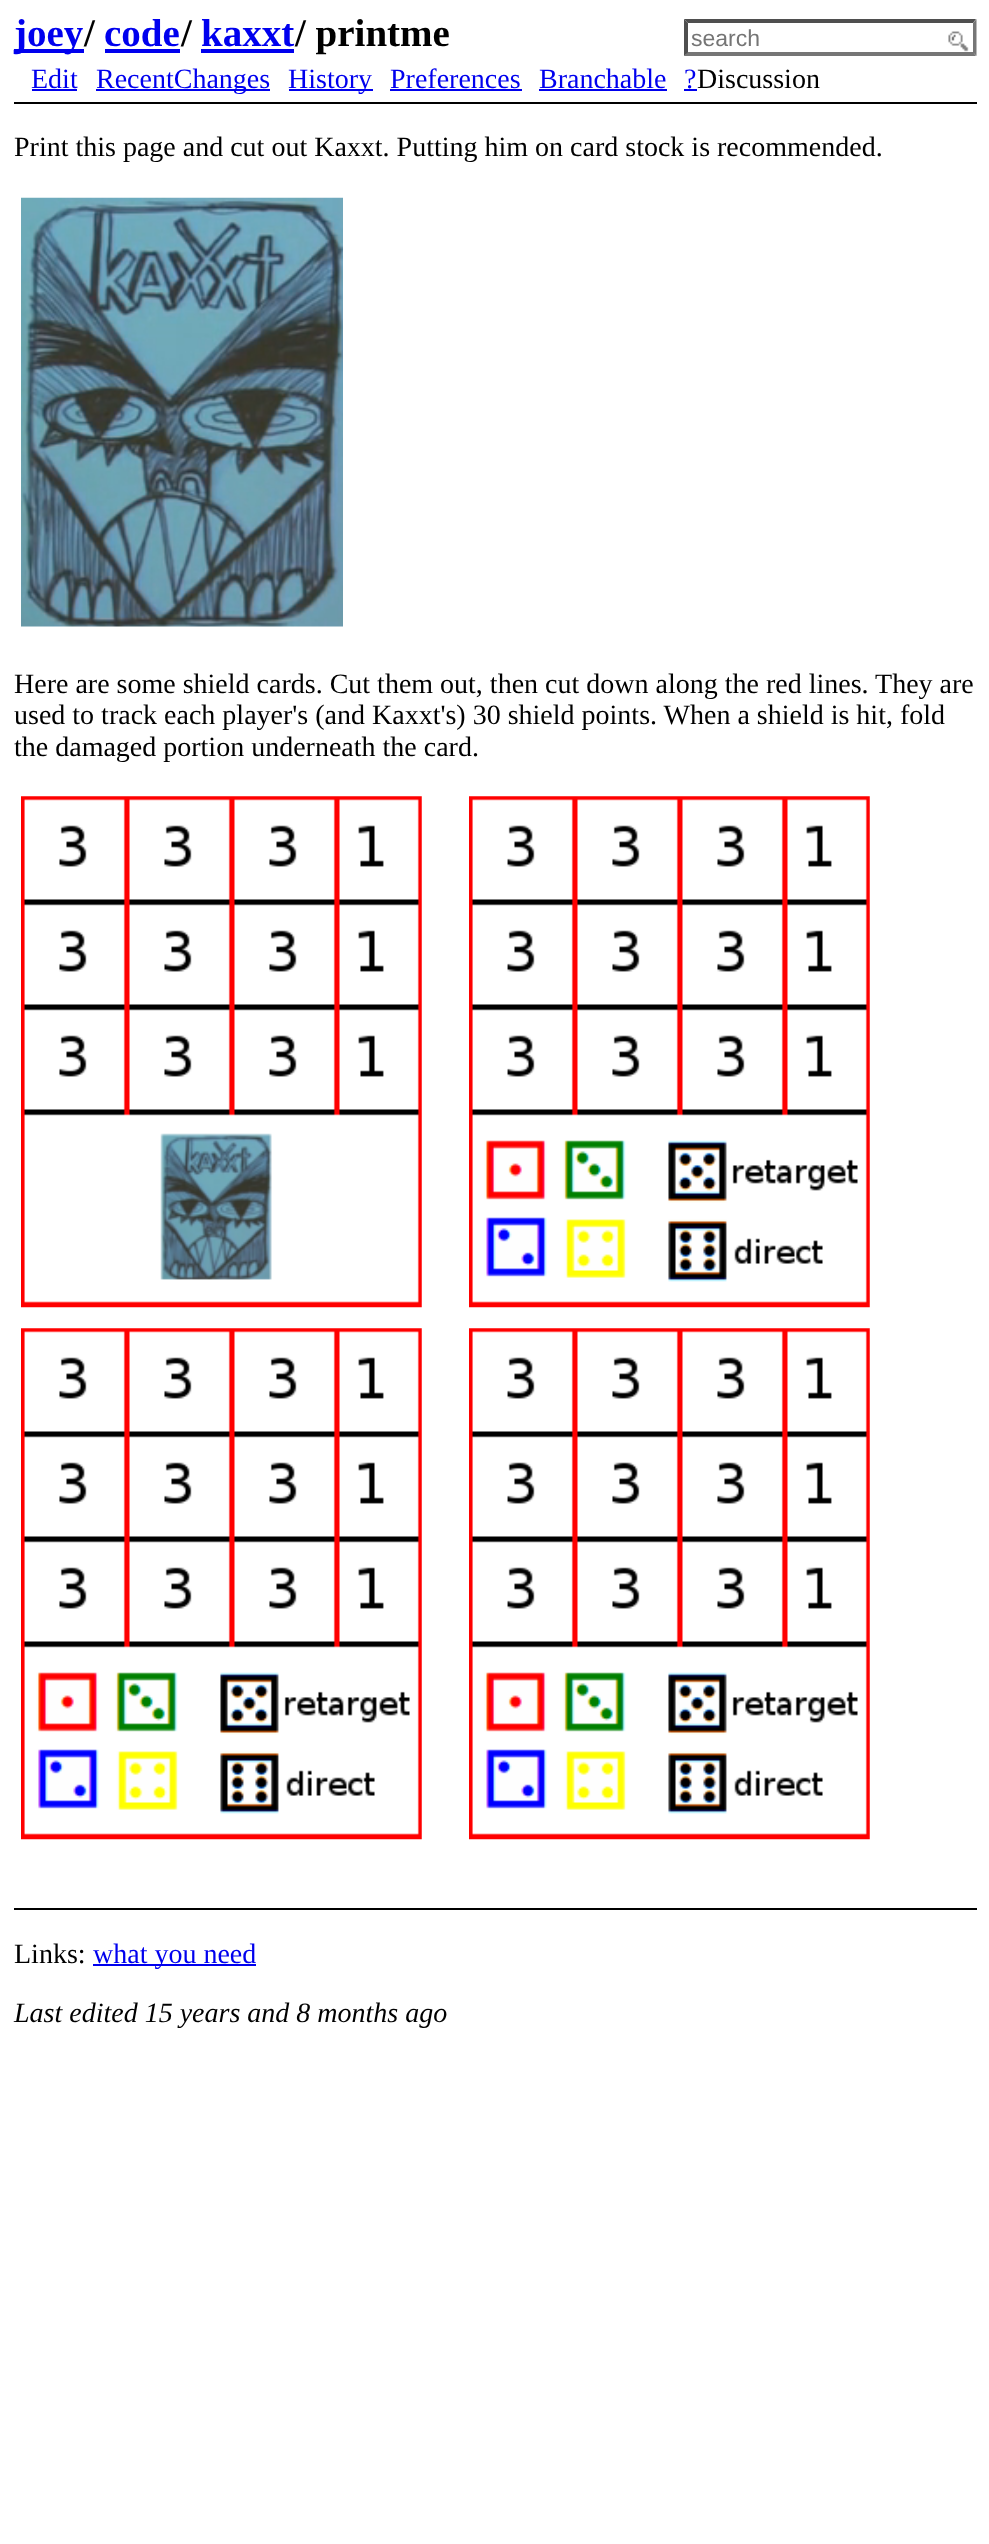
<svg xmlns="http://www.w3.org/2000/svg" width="989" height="2544">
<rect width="100%" height="100%" fill="#fff"/>
<rect x="14" y="49" width="70" height="4" fill="#00e"/>
<text x="14" y="46" style="font-family:Liberation Serif;font-size:39px;font-weight:bold;fill:#00e">joey</text>
<text x="84" y="46" style="font-family:Liberation Serif;font-size:39px;font-weight:bold;fill:#000">/</text>
<text x="104" y="46" style="font-family:Liberation Serif;font-size:39px;font-weight:bold;fill:#00e">code</text>
<text x="181" y="46" style="font-family:Liberation Serif;font-size:39px;font-weight:bold;fill:#000">/</text>
<rect x="105" y="49" width="75" height="4" fill="#00e"/>
<text x="201" y="46" style="font-family:Liberation Serif;font-size:39px;font-weight:bold;fill:#00e">kaxxt</text>
<text x="295" y="46" style="font-family:Liberation Serif;font-size:39px;font-weight:bold;fill:#000">/ printme</text>
<rect x="201" y="49" width="93" height="4" fill="#00e"/>
<image x="948" y="31" width="21" height="21" href="media/1.png"/>
<path d="M684 19h292l-3 4h-285z" fill="#4f4f4f"/>
<path d="M976.5 19v37l-3.5-3.5v-29.5z" fill="#767676"/>
<path d="M976 56h-292l4-4h285z" fill="#767676"/>
<path d="M684 56v-37l4 4v29.5z" fill="#4f4f4f"/>
<text x="691" y="46" style="font-family:Liberation Sans;font-size:23px;fill:#757575">search</text>
<rect x="14" y="102" width="963" height="2" fill="#000"/>
<text x="31" y="88" style="font-family:Liberation Serif;font-size:28px;fill:#00e">Edit</text>
<rect x="32" y="89" width="45" height="2" fill="#00e"/>
<rect x="96" y="89" width="174" height="2" fill="#00e"/>
<text x="96" y="88" style="font-family:Liberation Serif;font-size:28px;fill:#00e">RecentChanges</text>
<rect x="289" y="89" width="84" height="2" fill="#00e"/>
<text x="288" y="88" style="font-family:Liberation Serif;font-size:28px;fill:#00e">History</text>
<text x="390" y="88" style="font-family:Liberation Serif;font-size:28px;fill:#00e">Preferences</text>
<rect x="390" y="89" width="132" height="2" fill="#00e"/>
<text x="539" y="88" style="font-family:Liberation Serif;font-size:28px;fill:#00e">Branchable</text>
<rect x="539" y="89" width="128" height="2" fill="#00e"/>
<text x="684" y="88" style="font-family:Liberation Serif;font-size:28px;fill:#00e">?</text>
<rect x="684" y="89" width="13" height="2" fill="#00e"/>
<text x="697" y="88" style="font-family:Liberation Serif;font-size:28px;fill:#000">Discussion</text>
<text x="14" y="156" style="font-family:Liberation Serif;font-size:28px;fill:#000">Print this page and cut out Kaxxt. Putting him on card stock is recommended.</text>
<image x="21" y="197" width="322" height="430" href="media/2.png"/>
<text x="14" y="693" style="font-family:Liberation Serif;font-size:28px;fill:#000">Here are some shield cards. Cut them out, then cut down along the red lines. They are</text>
<text x="14" y="724" style="font-family:Liberation Serif;font-size:28px;fill:#000">used to track each player's (and Kaxxt's) 30 shield points. When a shield is hit, fold</text>
<text x="14" y="756" style="font-family:Liberation Serif;font-size:28px;fill:#000">the damaged portion underneath the card.</text>
<image x="21" y="796" width="401" height="512" href="media/3.png"/>
<image x="469" y="796" width="401" height="512" href="media/4.png"/>
<image x="21" y="1328" width="401" height="512" href="media/5.png"/>
<image x="469" y="1328" width="401" height="512" href="media/4.png"/>
<rect x="14" y="1908" width="963" height="2" fill="#000"/>
<text x="14" y="1963" style="font-family:Liberation Serif;font-size:28px;fill:#000">Links:</text>
<rect x="93" y="1964" width="163" height="2" fill="#00e"/>
<text x="93" y="1963" style="font-family:Liberation Serif;font-size:28px;fill:#00e">what you need</text>
<text x="14" y="2022" style="font-family:Liberation Serif;font-size:28px;font-style:italic;fill:#000">Last edited 15 years and 8 months ago</text>
</svg>
